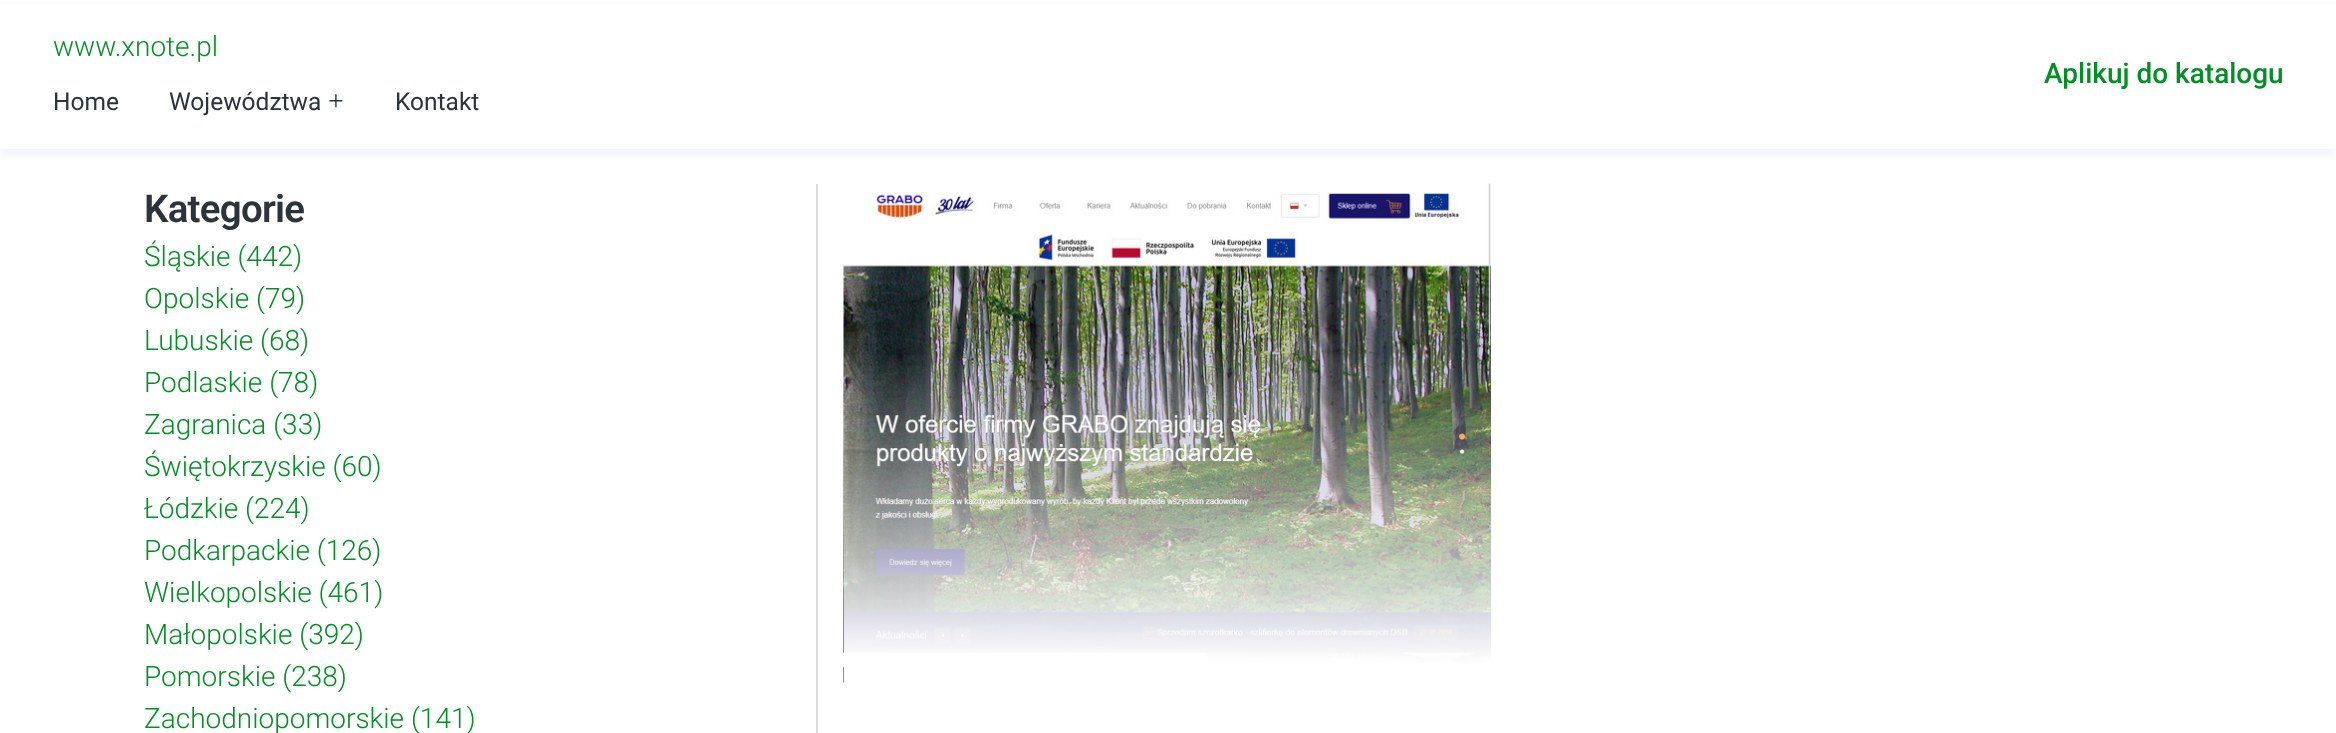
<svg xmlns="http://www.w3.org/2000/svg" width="2336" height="733">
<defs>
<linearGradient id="g1" gradientUnits="userSpaceOnUse" x1="1166" y1="710" x2="1169" y2="311"><stop offset="0.12" stop-color="#fff"/><stop offset="0.9" stop-color="#fff" stop-opacity="0"/></linearGradient>
</defs>
<rect width="100%" height="100%" fill="#fff"/>
<rect y="7" width="2336" height="149" fill="#092f570d" filter="blur(3.5px)"/>
<rect y="4" width="2336" height="145" fill="#fff"/>
<text x="53" y="56" style="font-family:Roboto;font-size:28px;font-weight:300;fill:#009024">www.xnote.pl</text>
<text x="53" y="110" style="font-family:Roboto;font-size:24.5px;fill:#2c343b">Home</text>
<text x="169" y="110" style="font-family:Roboto;font-size:24.5px;fill:#2c343b">Województwa</text>
<text x="328" y="110" style="font-family:Liberation Serif;font-size:28px;fill:#2c343b">+</text>
<text x="395" y="110" style="font-family:Roboto;font-size:24.5px;fill:#2c343b">Kontakt</text>
<text x="2044" y="83" style="font-family:Roboto;font-size:28px;font-weight:500;fill:#009024">Aplikuj do katalogu</text>
<rect x="816" y="184" width="2" height="549" fill="#dadada"/>
<text x="144" y="222" style="font-family:Roboto;font-size:38.5px;font-weight:600;letter-spacing:-0.75px;fill:#2c343b">Kategorie</text>
<text x="144" y="266" style="font-family:Roboto;font-size:28px;font-weight:300;fill:#009024">Śląskie (442)</text>
<text x="144" y="308" style="font-family:Roboto;font-size:28px;font-weight:300;fill:#009024">Opolskie (79)</text>
<text x="144" y="350" style="font-family:Roboto;font-size:28px;font-weight:300;fill:#009024">Lubuskie (68)</text>
<text x="144" y="392" style="font-family:Roboto;font-size:28px;font-weight:300;fill:#009024">Podlaskie (78)</text>
<text x="144" y="434" style="font-family:Roboto;font-size:28px;font-weight:300;fill:#009024">Zagranica (33)</text>
<text x="144" y="476" style="font-family:Roboto;font-size:28px;font-weight:300;fill:#009024">Świętokrzyskie (60)</text>
<text x="144" y="518" style="font-family:Roboto;font-size:28px;font-weight:300;fill:#009024">Łódzkie (224)</text>
<text x="144" y="560" style="font-family:Roboto;font-size:28px;font-weight:300;fill:#009024">Podkarpackie (126)</text>
<text x="144" y="602" style="font-family:Roboto;font-size:28px;font-weight:300;fill:#009024">Wielkopolskie (461)</text>
<text x="144" y="644" style="font-family:Roboto;font-size:28px;font-weight:300;fill:#009024">Małopolskie (392)</text>
<text x="144" y="686" style="font-family:Roboto;font-size:28px;font-weight:300;fill:#009024">Pomorskie (238)</text>
<text x="144" y="728" style="font-family:Roboto;font-size:28px;font-weight:300;fill:#009024">Zachodniopomorskie (141)</text>
<image x="843" y="183" width="648" height="500" href="media/1.png"/>
<rect x="844" y="355" width="647" height="328" fill="url(#g1)"/>
</svg>
